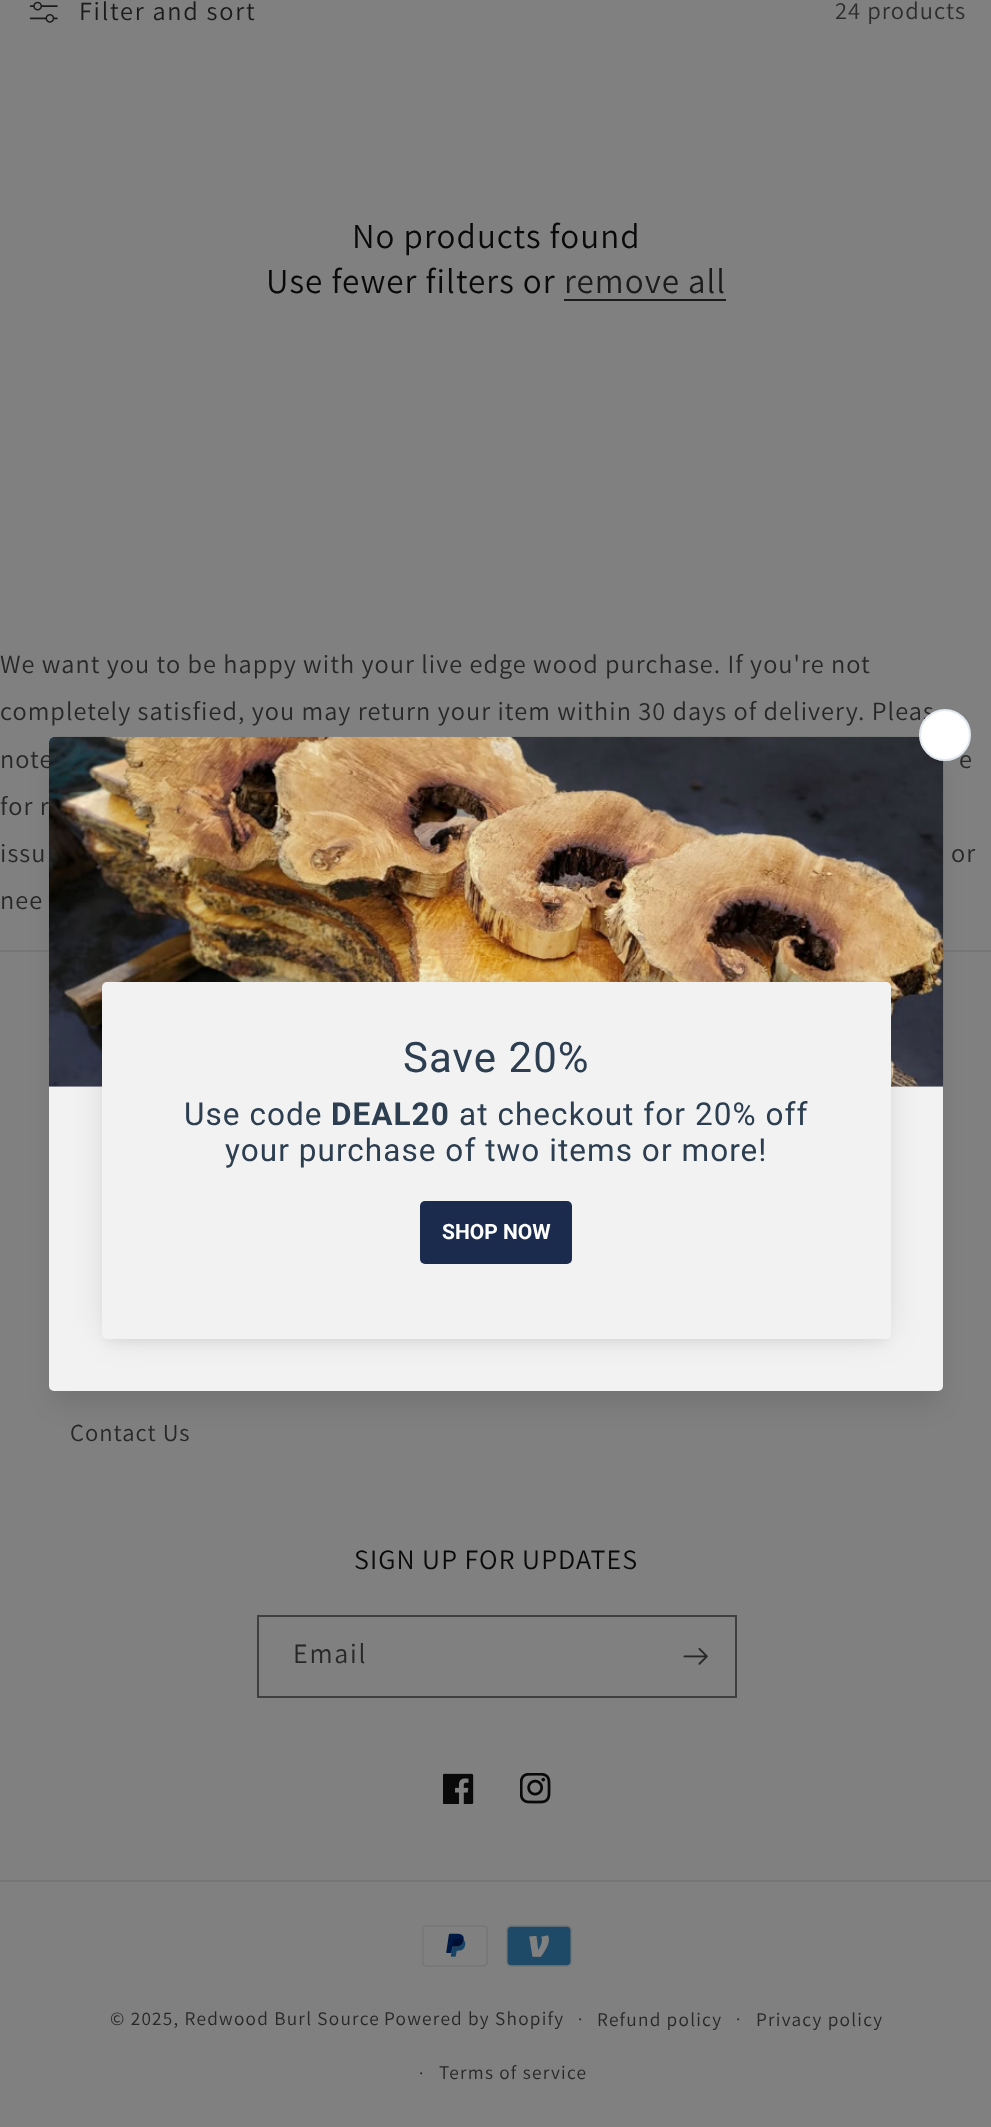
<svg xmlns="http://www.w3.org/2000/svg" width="991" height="2127">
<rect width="100%" height="100%" fill="#808080"/>
<image x="29" y="1" width="29" height="22" href="media/1.png"/>
<text x="79" y="20" style="font-family:Assistant;font-size:26.25px;letter-spacing:1.75px;fill:#1b1b1b">Filter and sort</text>
<text x="835" y="19" style="font-family:Assistant;font-size:24.5px;letter-spacing:1.05px;fill:#2d2d2d">24 products</text>
<text x="352" y="248" style="font-family:Assistant;font-size:35px;letter-spacing:1.05px;fill:#090909">No products found</text>
<text x="266" y="293" style="font-family:Assistant;font-size:35px;letter-spacing:1.05px;fill:#090909">Use fewer filters or</text>
<text x="564" y="293" style="font-family:Assistant;font-size:35px;letter-spacing:1.05px;fill:#1b1b1b">remove all</text>
<rect x="564" y="299" width="162" height="2" fill="#1b1b1b"/>
<text x="0" y="673" style="font-family:Assistant;font-size:26.25px;letter-spacing:1.05px;fill:#272727">We want you to be happy with your live edge wood purchase. If you're not</text>
<text x="0" y="720" style="font-family:Assistant;font-size:26.25px;letter-spacing:1.05px;fill:#272727">completely satisfied, you may return your item within 30 days of delivery. Pleas</text>
<text x="0" y="768" style="font-family:Assistant;font-size:26.25px;letter-spacing:1.05px;fill:#272727">note</text>
<text x="959" y="768" style="font-family:Assistant;font-size:26.25px;letter-spacing:1.05px;fill:#272727">e</text>
<text x="0" y="815" style="font-family:Assistant;font-size:26.25px;letter-spacing:1.05px;fill:#272727">for r</text>
<text x="0" y="862" style="font-family:Assistant;font-size:26.25px;letter-spacing:1.05px;fill:#272727">issu</text>
<text x="951" y="862" style="font-family:Assistant;font-size:26.25px;letter-spacing:1.05px;fill:#272727">or</text>
<text x="0" y="909" style="font-family:Assistant;font-size:26.25px;letter-spacing:1.05px;fill:#272727">nee</text>
<rect y="950" width="991" height="2" fill="#767676"/>
<rect x="54" y="760" width="884" height="644" fill="#0000001a" filter="blur(13px)"/>
<rect x="49" y="737" width="894" height="654" rx="5" fill="#f2f2f2"/>
<image x="49" y="736" width="895" height="351" href="media/2.png"/>
<circle cx="945" cy="735" r="25" fill="#fff" stroke="#e2e8f0" stroke-width="2"/>
<rect x="105" y="992" width="782" height="350" rx="2" fill="#0000000d" filter="blur(5px)"/>
<rect x="107" y="987" width="779" height="347" fill="#0000001f" filter="blur(17.5px)"/>
<rect x="102" y="982" width="789" height="357" rx="5" fill="#f2f2f2"/>
<text x="403" y="1072" style="font-family:Roboto;font-size:42px;letter-spacing:1.05px;fill:#2c3e50">Save 20%</text>
<text x="184" y="1125" style="font-family:Roboto;font-size:31.5px;letter-spacing:1.05px;fill:#2c3e50">Use code</text>
<text x="331" y="1125" style="font-family:Roboto;font-size:31.5px;font-weight:bold;letter-spacing:1.05px;fill:#2c3e50">DEAL20</text>
<text x="459" y="1125" style="font-family:Roboto;font-size:31.5px;letter-spacing:1.05px;fill:#2c3e50">at checkout for 20% off</text>
<text x="225" y="1161" style="font-family:Roboto;font-size:31.5px;letter-spacing:1.05px;fill:#2c3e50">your purchase of two items or more!</text>
<rect x="420" y="1201" width="152" height="63" rx="5" fill="#1b2b4d"/>
<text x="442" y="1239" style="font-family:Roboto;font-size:21px;font-weight:bold;fill:#fff">SHOP NOW</text>
<text x="70" y="1441" style="font-family:Assistant;font-size:24.5px;letter-spacing:1.05px;fill:#272727">Contact Us</text>
<text x="354" y="1569" style="font-family:Assistant;font-size:28px;letter-spacing:1.05px;fill:#090909">SIGN UP FOR UPDATES</text>
<rect x="258" y="1616" width="478" height="81" fill="none" stroke="#3f3f3f" stroke-width="2"/>
<text x="293" y="1663" style="font-family:Assistant;font-size:28px;letter-spacing:1.75px;fill:#272727">Email</text>
<image x="683" y="1648" width="25" height="17" href="media/3.png"/>
<image x="443" y="1773" width="31" height="31" href="media/4.png"/>
<image x="520" y="1773" width="31" height="31" href="media/5.png"/>
<rect y="1880" width="991" height="2" fill="#767676"/>
<image x="422" y="1925" width="66" height="42" href="media/6.png"/>
<image x="506" y="1925" width="66" height="42" href="media/7.png"/>
<text x="110" y="2025" style="font-family:Assistant;font-size:19.25px;letter-spacing:1.25px;fill:#272727">© 2025, Redwood Burl Source</text>
<text x="384" y="2025" style="font-family:Assistant;font-size:19.25px;letter-spacing:1.25px;fill:#272727">Powered by Shopify</text>
<text x="578" y="2025" style="font-family:Assistant;font-size:18px;letter-spacing:1.25px;fill:#272727">·</text>
<text x="597" y="2026" style="font-family:Assistant;font-size:19.25px;letter-spacing:1.25px;fill:#272727">Refund policy</text>
<text x="736" y="2025" style="font-family:Assistant;font-size:18px;letter-spacing:1.25px;fill:#272727">·</text>
<text x="756" y="2026" style="font-family:Assistant;font-size:19.25px;letter-spacing:1.25px;fill:#272727">Privacy policy</text>
<text x="419" y="2079" style="font-family:Assistant;font-size:18px;letter-spacing:1.25px;fill:#272727">·</text>
<text x="439" y="2079" style="font-family:Assistant;font-size:19.25px;letter-spacing:1.25px;fill:#272727">Terms of service</text>
</svg>
